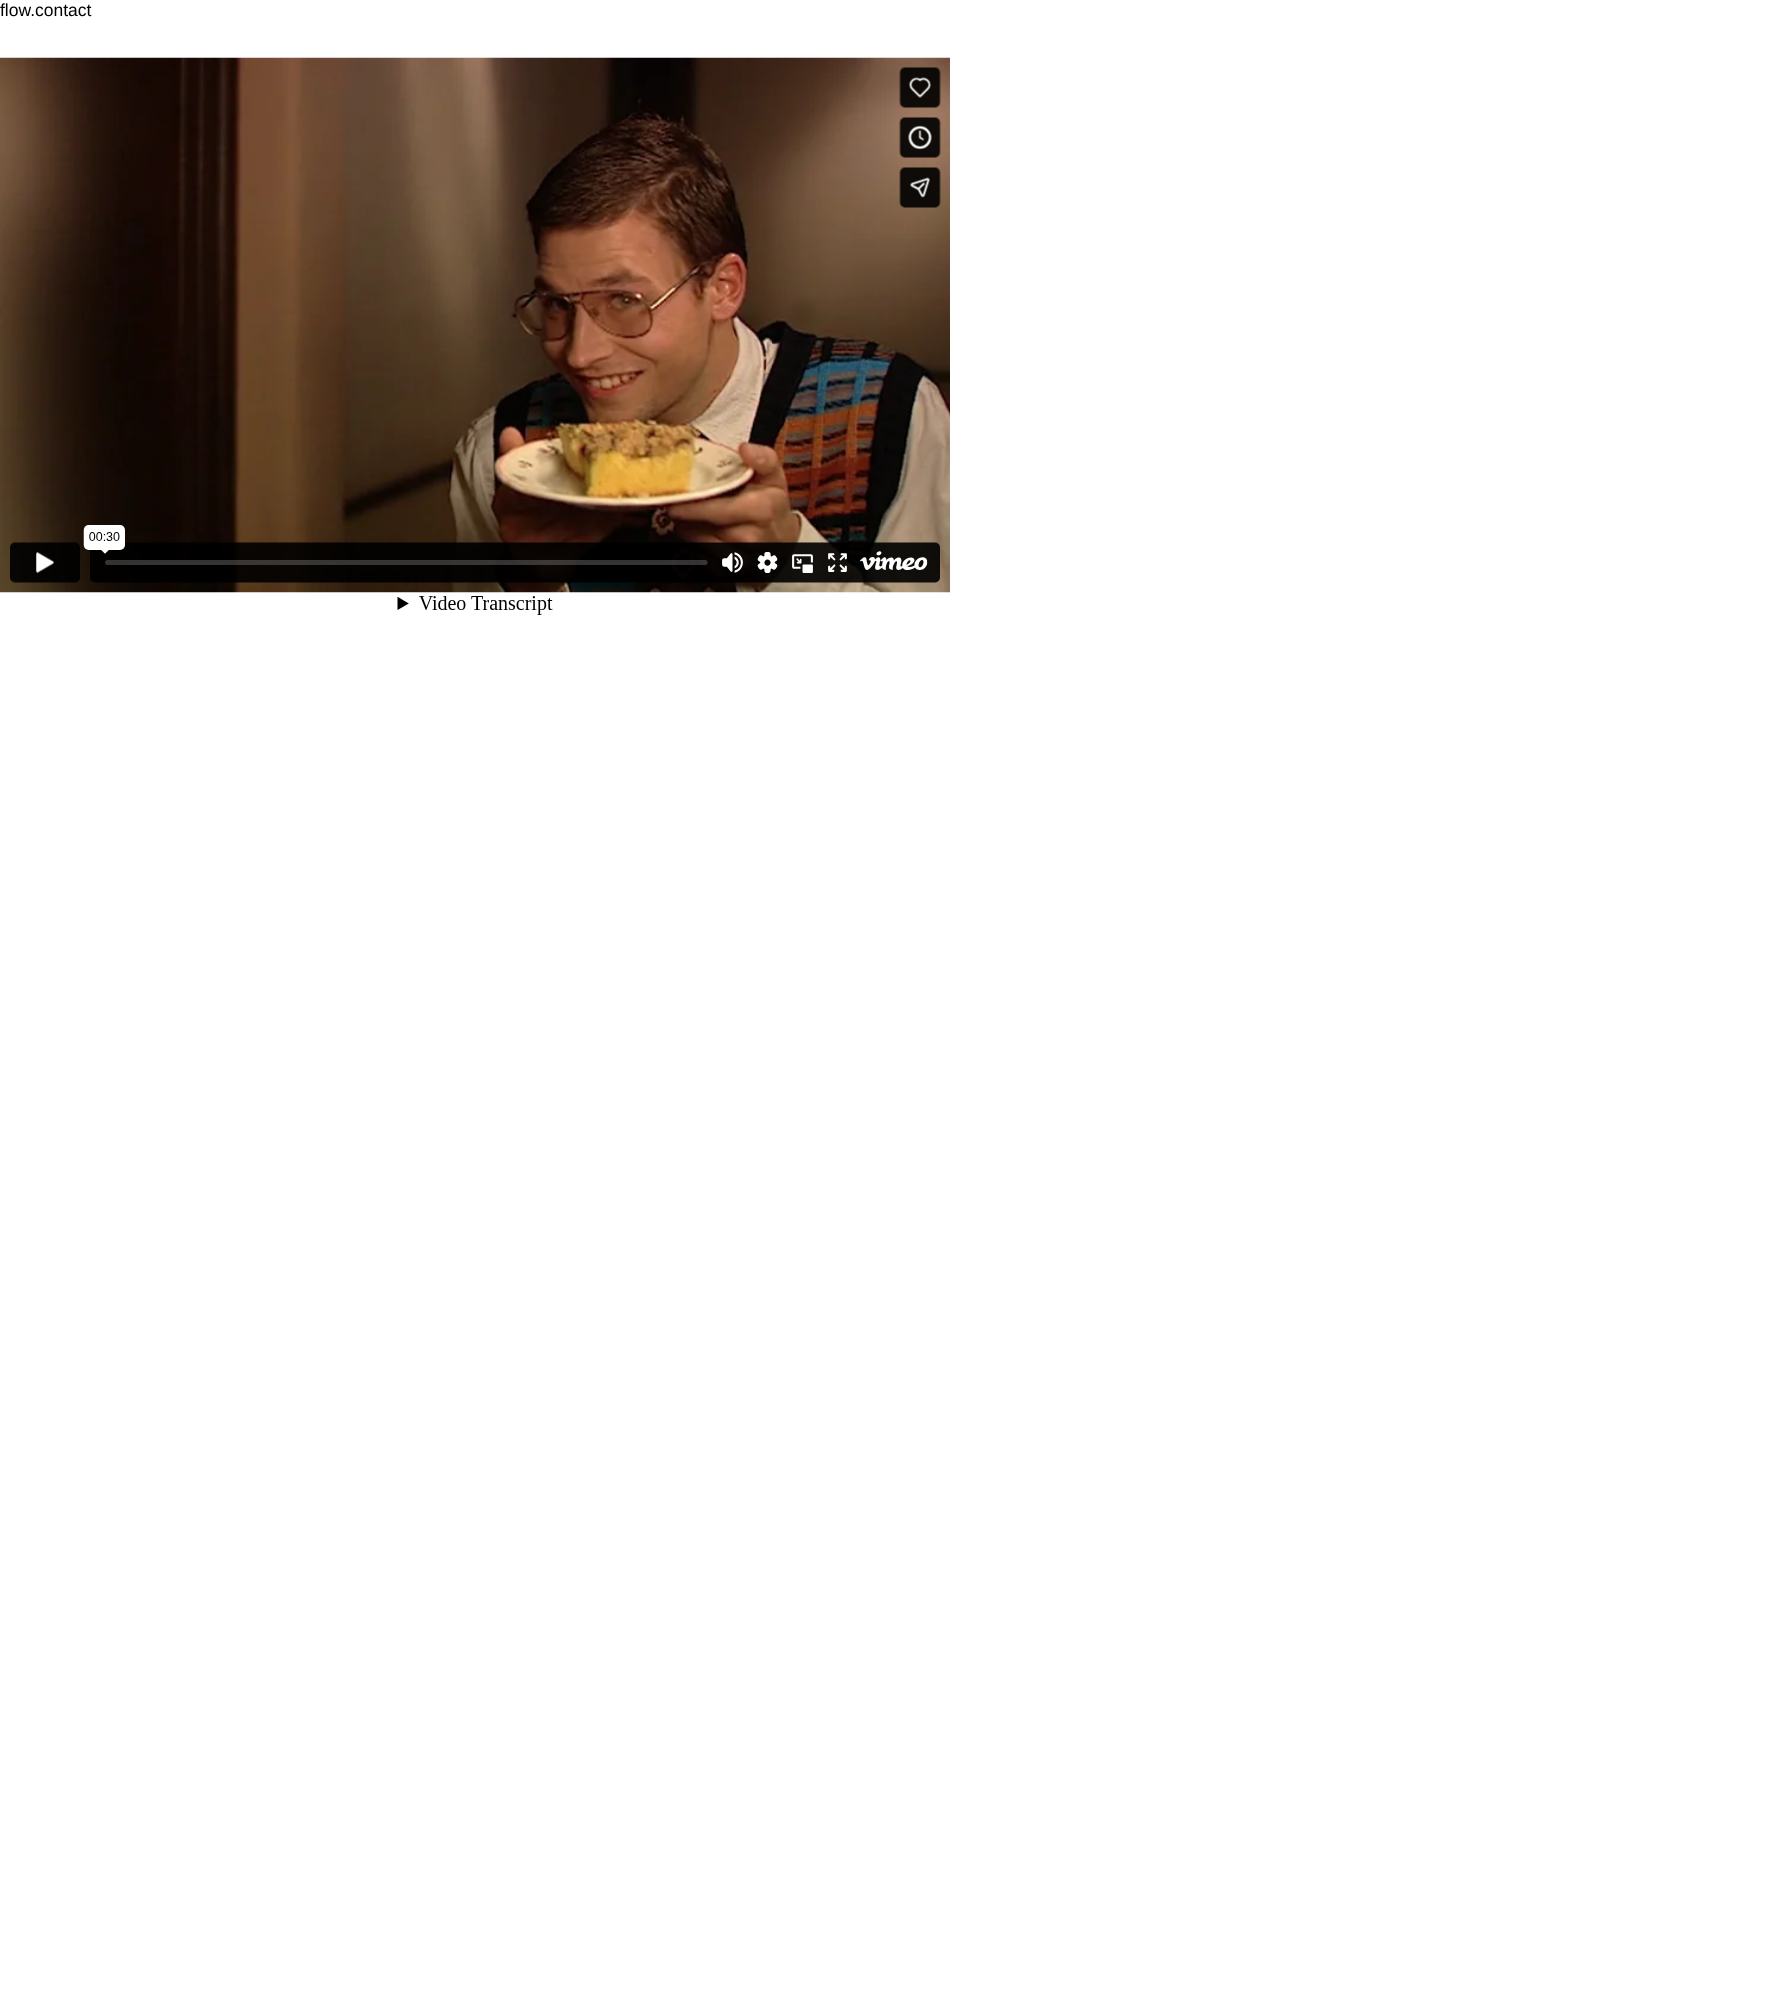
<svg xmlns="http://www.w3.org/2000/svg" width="1777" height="1997">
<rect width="100%" height="100%" fill="#fff"/>
<text x="0" y="16" style="font-family:Liberation Sans;font-size:17.5px;fill:#000">flow.contact</text>
<image x="0" y="57" width="950" height="558" href="media/1.png"/>
</svg>
